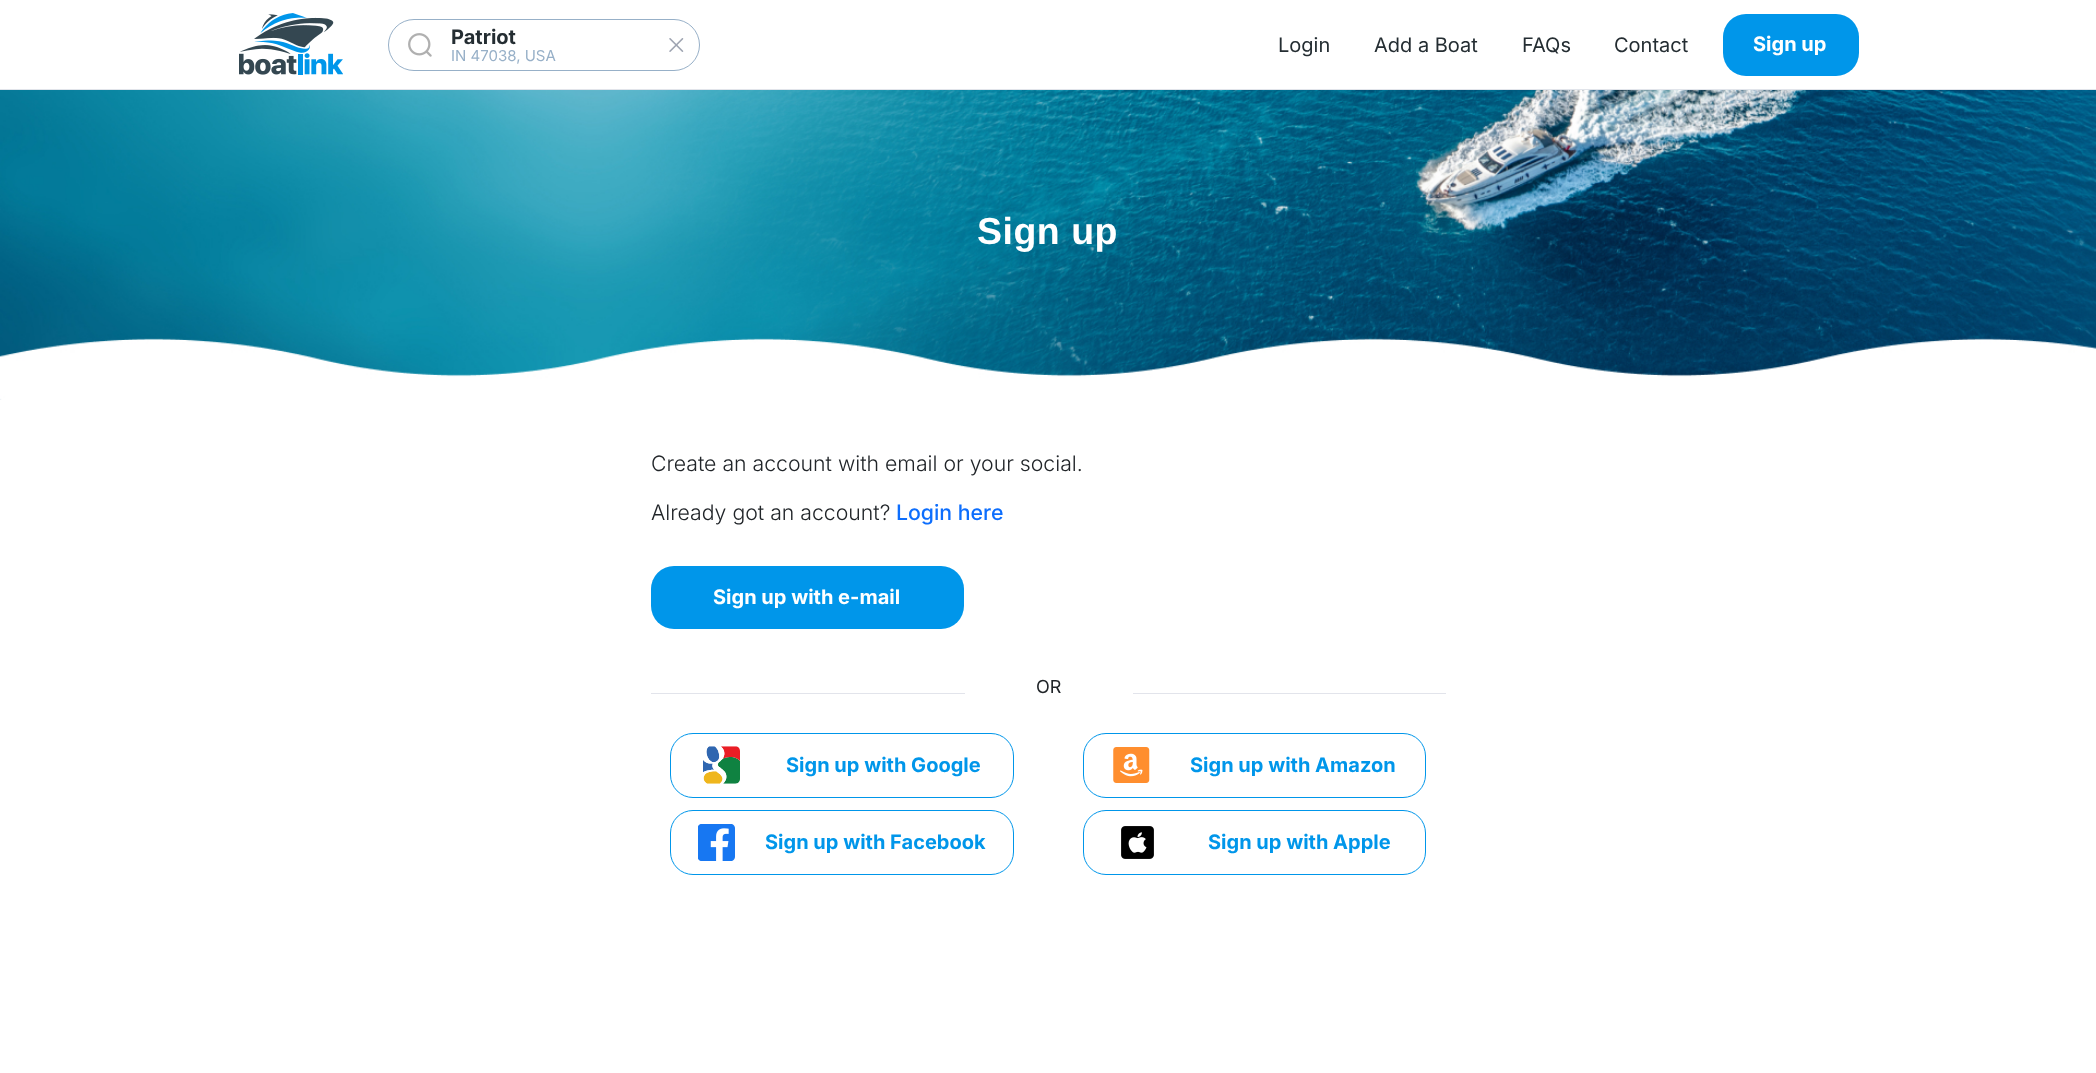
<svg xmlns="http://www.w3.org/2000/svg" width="2096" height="1073">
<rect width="100%" height="100%" fill="#fff"/>
<rect y="89" width="2096" height="1" fill="#e1e4ea"/>
<image x="239" y="13" width="104" height="62" href="media/1.png"/>
<rect x="388.5" y="19.5" width="311" height="51" rx="25.5" fill="none" stroke="#97b0c8"/>
<image x="408" y="33" width="24" height="24" href="media/2.png"/>
<text x="451" y="44" style="font-family:Inter;font-size:20px;font-weight:bold;fill:#242d32">Patriot</text>
<text x="451" y="61" style="font-family:Inter;font-size:15px;fill:#97b0c8">IN 47038, USA</text>
<image x="669" y="38" width="15" height="14" href="media/3.png"/>
<text x="1278" y="52" style="font-family:Inter;font-size:20px;fill:#242d32">Login</text>
<text x="1374" y="52" style="font-family:Inter;font-size:20px;fill:#242d32">Add a Boat</text>
<text x="1522" y="52" style="font-family:Inter;font-size:20px;fill:#242d32">FAQs</text>
<text x="1614" y="52" style="font-family:Inter;font-size:20px;fill:#242d32">Contact</text>
<rect x="1723" y="14" width="136" height="62" rx="23" fill="#0096ea"/>
<text x="1753" y="51" style="font-family:Inter;font-size:20px;font-weight:bold;fill:#fff">Sign up</text>
<image x="0" y="90" width="2096" height="310" href="media/4.png"/>
<text x="977" y="244" style="font-family:Liberation Sans;font-size:37.5px;font-weight:bold;letter-spacing:0.5px;fill:#fff">Sign up</text>
<text x="651" y="471" style="font-family:Inter;font-size:21.25px;font-weight:300;fill:#212529">Create an account with email or your social.</text>
<text x="651" y="520" style="font-family:Inter;font-size:21.25px;font-weight:300;fill:#212529">Already got an account?</text>
<text x="896" y="520" style="font-family:Inter;font-size:21.25px;font-weight:500;fill:#0d6efd">Login here</text>
<rect x="651" y="566" width="313" height="63" rx="23" fill="#0096ea"/>
<text x="713" y="604" style="font-family:Inter;font-size:20px;font-weight:bold;fill:#fff">Sign up with e-mail</text>
<rect x="651" y="693" width="314" height="1" fill="#e2e4eb"/>
<text x="1036" y="693" style="font-family:Inter;font-size:18px;fill:#212529">OR</text>
<rect x="1133" y="693" width="313" height="1" fill="#e2e4eb"/>
<rect x="670.5" y="733.5" width="343" height="64" rx="22.5" fill="none" stroke="#0096ea"/>
<image x="703" y="746" width="37" height="38" href="media/5.png"/>
<text x="786" y="772" style="font-family:Inter;font-size:20px;font-weight:bold;fill:#0096ea">Sign up with Google</text>
<rect x="670.5" y="810.5" width="343" height="64" rx="22.5" fill="none" stroke="#0096ea"/>
<image x="698" y="824" width="37" height="37" href="media/6.png"/>
<text x="765" y="849" style="font-family:Inter;font-size:20px;font-weight:bold;fill:#0096ea">Sign up with Facebook</text>
<rect x="1083.5" y="733.5" width="342" height="64" rx="22.5" fill="none" stroke="#0096ea"/>
<image x="1113" y="747" width="37" height="36" href="media/7.png"/>
<text x="1190" y="772" style="font-family:Inter;font-size:20px;font-weight:bold;fill:#0096ea">Sign up with Amazon</text>
<rect x="1083.5" y="810.5" width="342" height="64" rx="22.5" fill="none" stroke="#0096ea"/>
<image x="1121" y="826" width="33" height="33" href="media/8.png"/>
<text x="1208" y="849" style="font-family:Inter;font-size:20px;font-weight:bold;fill:#0096ea">Sign up with Apple</text>
</svg>
